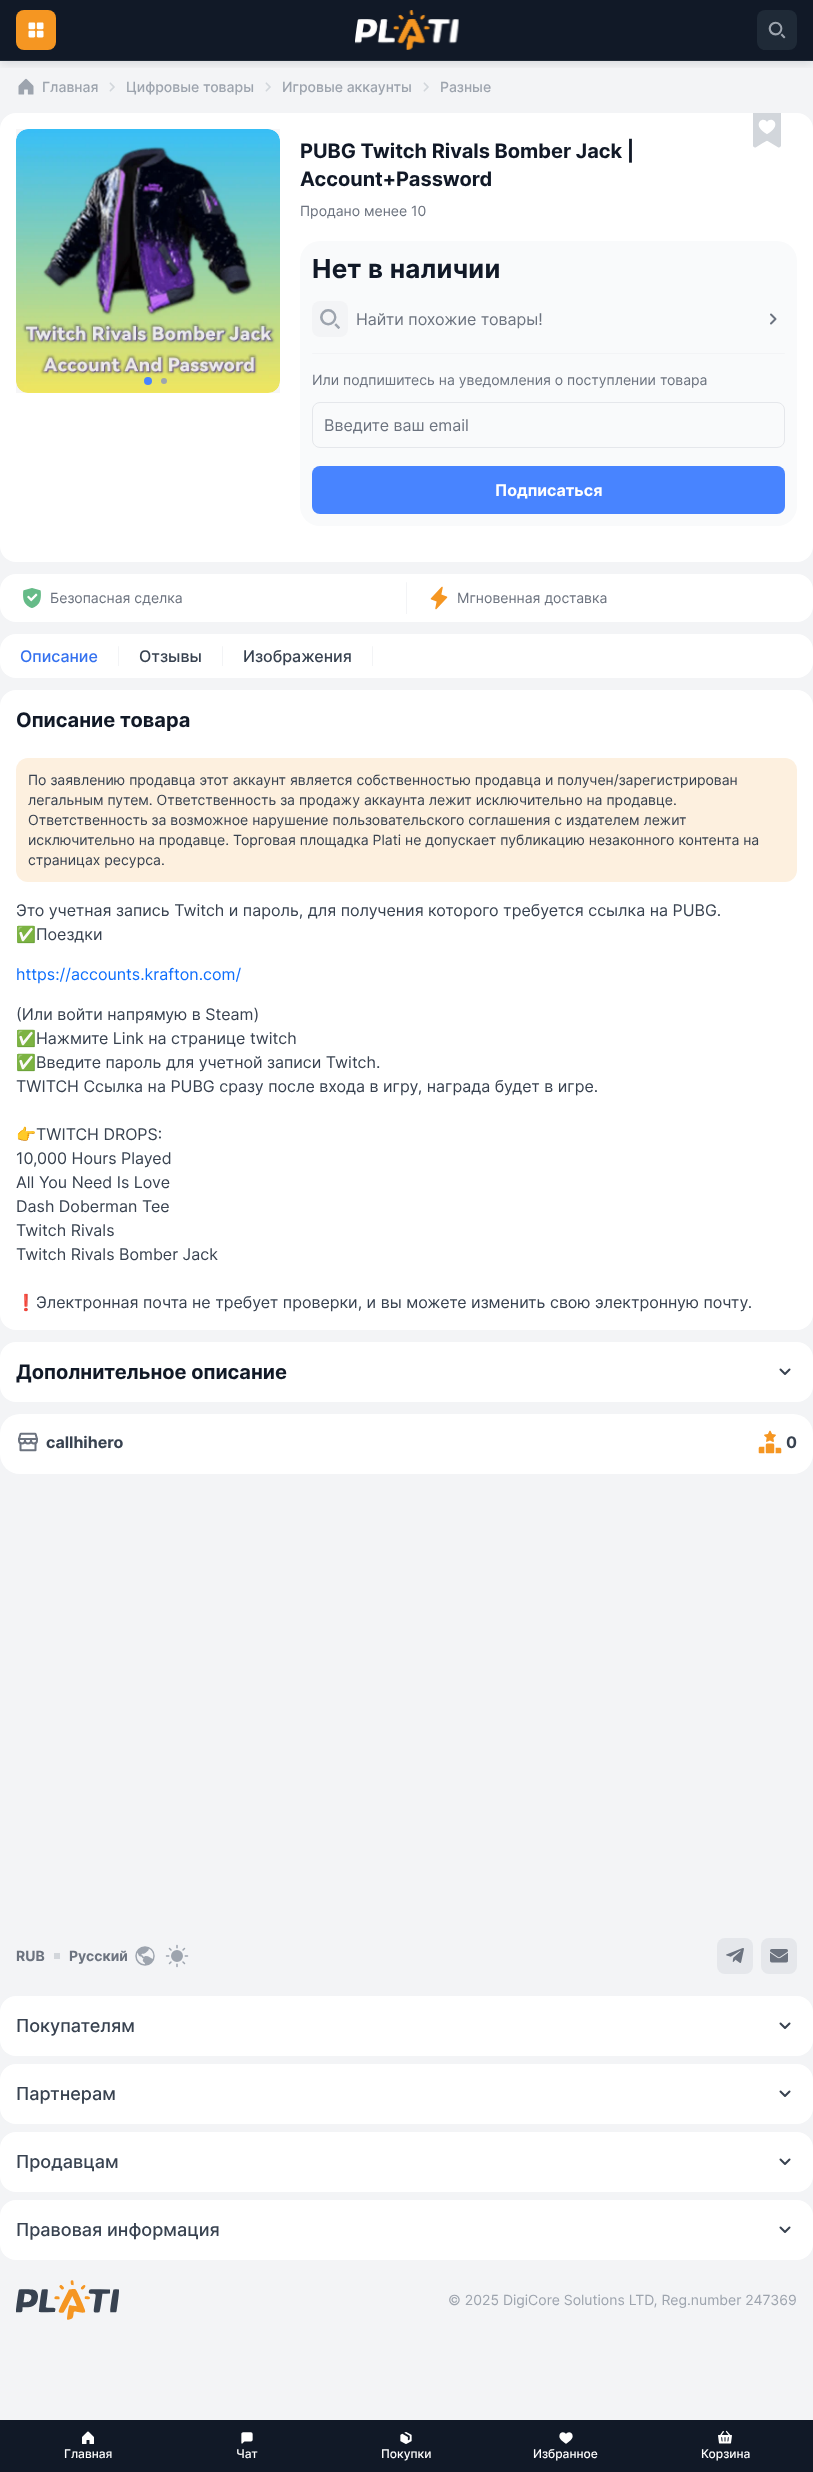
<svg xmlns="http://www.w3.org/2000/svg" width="813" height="2472">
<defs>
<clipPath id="clip1"><rect x="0" y="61" width="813" height="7"/></clipPath>
</defs>
<rect width="100%" height="100%" fill="#f3f4f6"/>
<image x="18" y="78" width="16" height="17" href="media/1.png"/>
<text x="42" y="92" style="font-family:Inter;font-size:14px;font-weight:500;fill:#9da4ae">Главная</text>
<image x="109" y="82" width="6" height="10" href="media/2.png"/>
<text x="126" y="92" style="font-family:Inter;font-size:14px;font-weight:500;fill:#9da4ae">Цифровые товары</text>
<image x="265" y="82" width="6" height="10" href="media/2.png"/>
<text x="282" y="92" style="font-family:Inter;font-size:14px;font-weight:500;fill:#9da4ae">Игровые аккаунты</text>
<image x="423" y="82" width="6" height="10" href="media/2.png"/>
<text x="440" y="92" style="font-family:Inter;font-size:14px;font-weight:500;fill:#9da4ae">Разные</text>
<rect y="113" width="813" height="449" rx="16" fill="#fff"/>
<image x="16" y="129" width="264" height="264" href="media/3.png"/>
<rect x="16" y="129" width="264" height="264" fill="#1119270a"/>
<circle cx="148" cy="381" r="4" fill="#4884ff"/>
<circle cx="164" cy="381" r="3" fill="#9da4ae"/>
<text x="300" y="158" style="font-family:Inter;font-size:20px;font-weight:bold;fill:#111927">PUBG Twitch Rivals Bomber Jack |</text>
<text x="300" y="186" style="font-family:Inter;font-size:20px;font-weight:bold;fill:#111927">Account+Password</text>
<text x="300" y="216" style="font-family:Inter;font-size:14px;fill:#6c737f">Продано менее 10</text>
<rect x="300" y="241" width="497" height="285" rx="20" fill="#f9fafb"/>
<text x="312" y="278" style="font-family:Inter;font-size:26px;font-weight:bold;letter-spacing:0.25px;fill:#111927">Нет в наличии</text>
<rect x="312" y="301" width="36" height="36" rx="8" fill="#f3f4f6"/>
<image x="320" y="309" width="20" height="20" href="media/4.png"/>
<text x="356" y="325" style="font-family:Inter;font-size:16px;fill:#6c737f">Найти похожие товары!</text>
<image x="770" y="313" width="7" height="12" href="media/5.png"/>
<rect x="312" y="353" width="473" height="1" rx="0.5" fill="#f3f4f6"/>
<text x="312" y="385" style="font-family:Inter;font-size:14px;fill:#6c737f">Или подпишитесь на уведомления о поступлении товара</text>
<rect x="312.5" y="402.5" width="472" height="45" rx="7.5" fill="none" stroke="#e5e7eb"/>
<text x="324" y="431" style="font-family:Inter;font-size:16px;fill:#6c737f">Введите ваш email</text>
<rect x="312" y="466" width="473" height="48" rx="8" fill="#4884ff"/>
<text x="495" y="496" style="font-family:Inter;font-size:16px;font-weight:bold;fill:#fff">Подписаться</text>
<image x="753" y="113" width="28" height="35" href="media/6.png"/>
<rect y="574" width="813" height="48" rx="16" fill="#fff"/>
<image x="23" y="588" width="18" height="20" href="media/7.png"/>
<text x="50" y="603" style="font-family:Inter;font-size:14px;fill:#6c737f">Безопасная сделка</text>
<rect x="406" y="582" width="1" height="32" rx="0.5" fill="#f3f4f6"/>
<image x="430" y="586" width="18" height="24" href="media/8.png"/>
<text x="457" y="603" style="font-family:Inter;font-size:14px;fill:#6c737f">Мгновенная доставка</text>
<rect y="634" width="813" height="44" rx="16" fill="#fff"/>
<text x="20" y="662" style="font-family:Inter;font-size:16px;font-weight:500;fill:#3471ef">Описание</text>
<rect x="118" y="646" width="1" height="20" rx="0.5" fill="#f3f4f6"/>
<text x="139" y="662" style="font-family:Inter;font-size:16px;font-weight:500;fill:#384250">Отзывы</text>
<rect x="222" y="646" width="1" height="20" rx="0.5" fill="#f3f4f6"/>
<text x="243" y="662" style="font-family:Inter;font-size:16px;font-weight:500;fill:#384250">Изображения</text>
<rect x="372" y="646" width="1" height="20" rx="0.5" fill="#f3f4f6"/>
<rect y="690" width="813" height="640" rx="16" fill="#fff"/>
<text x="16" y="727" style="font-family:Inter;font-size:20px;font-weight:bold;fill:#111927">Описание товара</text>
<rect x="16" y="758" width="781" height="124" rx="12" fill="#fdf0df"/>
<text x="28" y="785" style="font-family:Inter;font-size:14px;fill:#384250">По заявлению продавца этот аккаунт является собственностью продавца и получен/зарегистрирован</text>
<text x="28" y="805" style="font-family:Inter;font-size:14px;fill:#384250">легальным путем. Ответственность за продажу аккаунта лежит исключительно на продавце.</text>
<text x="28" y="825" style="font-family:Inter;font-size:14px;fill:#384250">Ответственность за возможное нарушение пользовательского соглашения с издателем лежит</text>
<text x="28" y="845" style="font-family:Inter;font-size:14px;fill:#384250">исключительно на продавце. Торговая площадка Plati не допускает публикацию незаконного контента на</text>
<text x="28" y="865" style="font-family:Inter;font-size:14px;fill:#384250">страницах ресурса.</text>
<text x="16" y="916" style="font-family:Inter;font-size:16px;fill:#384250">Это учетная запись Twitch и пароль, для получения которого требуется ссылка на PUBG.</text>
<text x="16" y="940" style="font-family:Noto Color Emoji;font-size:16px;fill:#384250">✅</text>
<text x="36" y="940" style="font-family:Inter;font-size:16px;fill:#384250">Поездки</text>
<text x="16" y="980" style="font-family:Inter;font-size:16px;fill:#0d6efd">https://accounts.krafton.com/</text>
<text x="16" y="1020" style="font-family:Inter;font-size:16px;fill:#384250">(Или войти напрямую в Steam)</text>
<text x="16" y="1044" style="font-family:Noto Color Emoji;font-size:16px;fill:#384250">✅</text>
<text x="36" y="1044" style="font-family:Inter;font-size:16px;fill:#384250">Нажмите Link на странице twitch</text>
<text x="16" y="1068" style="font-family:Noto Color Emoji;font-size:16px;fill:#384250">✅</text>
<text x="36" y="1068" style="font-family:Inter;font-size:16px;fill:#384250">Введите пароль для учетной записи Twitch.</text>
<text x="16" y="1092" style="font-family:Inter;font-size:16px;fill:#384250">TWITCH Ссылка на PUBG сразу после входа в игру, награда будет в игре.</text>
<text x="16" y="1140" style="font-family:Noto Color Emoji;font-size:16px;fill:#384250">👉</text>
<text x="36" y="1140" style="font-family:Inter;font-size:16px;fill:#384250">TWITCH DROPS:</text>
<text x="16" y="1164" style="font-family:Inter;font-size:16px;fill:#384250">10,000 Hours Played</text>
<text x="16" y="1188" style="font-family:Inter;font-size:16px;fill:#384250">All You Need Is Love</text>
<text x="16" y="1212" style="font-family:Inter;font-size:16px;fill:#384250">Dash Doberman Tee</text>
<text x="16" y="1236" style="font-family:Inter;font-size:16px;fill:#384250">Twitch Rivals</text>
<text x="16" y="1260" style="font-family:Inter;font-size:16px;fill:#384250">Twitch Rivals Bomber Jack</text>
<text x="16" y="1308" style="font-family:Noto Color Emoji;font-size:16px;fill:#384250">❗️</text>
<text x="36" y="1308" style="font-family:Inter;font-size:16px;fill:#384250">Электронная почта не требует проверки, и вы можете изменить свою электронную почту.</text>
<rect y="1342" width="813" height="60" rx="16" fill="#fff"/>
<text x="16" y="1379" style="font-family:Inter;font-size:20px;font-weight:bold;fill:#111927">Дополнительное описание</text>
<image x="779" y="1368" width="12" height="7" href="media/9.png"/>
<rect y="1414" width="813" height="60" rx="20" fill="#fff"/>
<image x="18" y="1432" width="20" height="20" href="media/10.png"/>
<text x="46" y="1448" style="font-family:Inter;font-size:16px;font-weight:bold;fill:#384250">callhihero</text>
<image x="758" y="1430" width="24" height="24" href="media/11.png"/>
<text x="786" y="1448" style="font-family:Inter;font-size:16px;font-weight:bold;fill:#384250">0</text>
<text x="16" y="1961" style="font-family:Inter;font-size:14px;font-weight:bold;fill:#6c737f">RUB</text>
<rect x="54" y="1953" width="6" height="6" fill="#d2d6db"/>
<text x="69" y="1961" style="font-family:Inter;font-size:14px;font-weight:bold;fill:#6c737f">Русский</text>
<image x="135" y="1946" width="20" height="20" href="media/12.png"/>
<image x="165" y="1944" width="24" height="24" href="media/13.png"/>
<rect x="717" y="1938" width="36" height="36" rx="8" fill="#e5e7eb"/>
<image x="726" y="1948" width="18" height="15" href="media/14.png"/>
<rect x="761" y="1938" width="36" height="36" rx="8" fill="#e5e7eb"/>
<image x="770" y="1949" width="18" height="14" href="media/15.png"/>
<rect y="1996" width="813" height="60" rx="16" fill="#fff"/>
<text x="16" y="2032" style="font-family:Inter;font-size:18px;font-weight:500;fill:#384250">Покупателям</text>
<image x="779" y="2022" width="12" height="7" href="media/9.png"/>
<rect y="2064" width="813" height="60" rx="16" fill="#fff"/>
<text x="16" y="2100" style="font-family:Inter;font-size:18px;font-weight:500;fill:#384250">Партнерам</text>
<image x="779" y="2090" width="12" height="7" href="media/9.png"/>
<rect y="2132" width="813" height="60" rx="16" fill="#fff"/>
<text x="16" y="2168" style="font-family:Inter;font-size:18px;font-weight:500;fill:#384250">Продавцам</text>
<image x="779" y="2158" width="12" height="7" href="media/9.png"/>
<rect y="2200" width="813" height="60" rx="16" fill="#fff"/>
<text x="16" y="2236" style="font-family:Inter;font-size:18px;font-weight:500;fill:#384250">Правовая информация</text>
<image x="779" y="2226" width="12" height="7" href="media/9.png"/>
<image x="16" y="2280" width="103" height="40" href="media/16.png"/>
<text x="448" y="2305" style="font-family:Inter;font-size:14px;fill:#9da4ae">© 2025 DigiCore Solutions LTD, Reg.number 247369</text>
<rect width="813" height="60" fill="#111927"/>
<g clip-path="url(#clip1)">
<rect y="4" width="813" height="61" fill="#1119271a" filter="blur(4px)"/>
</g>
<rect y="60" width="813" height="1" fill="#1f2a37"/>
<rect x="16" y="10" width="40" height="40" rx="8" fill="#f59622"/>
<image x="28" y="22" width="16" height="16" href="media/17.png"/>
<image x="355" y="10" width="104" height="40" href="media/18.png"/>
<rect x="757" y="10" width="40" height="40" rx="8" fill="#1f2a37"/>
<image x="768" y="21" width="18" height="18" href="media/19.png"/>
<rect y="2420" width="813" height="52" fill="#111927"/>
<image x="82" y="2431" width="12" height="13" href="media/20.png"/>
<text x="64" y="2458" style="font-family:Inter;font-size:12px;font-weight:500;fill:#fff">Главная</text>
<image x="241" y="2432" width="12" height="12" href="media/21.png"/>
<text x="236" y="2458" style="font-family:Inter;font-size:12px;font-weight:500;fill:#fff">Чат</text>
<image x="400" y="2432" width="12" height="12" href="media/22.png"/>
<text x="381" y="2458" style="font-family:Inter;font-size:12px;font-weight:500;fill:#fff">Покупки</text>
<image x="559" y="2432" width="14" height="12" href="media/23.png"/>
<text x="533" y="2458" style="font-family:Inter;font-size:12px;font-weight:500;fill:#fff">Избранное</text>
<image x="718" y="2430" width="14" height="14" href="media/24.png"/>
<text x="701" y="2458" style="font-family:Inter;font-size:12px;font-weight:500;fill:#fff">Корзина</text>
</svg>
